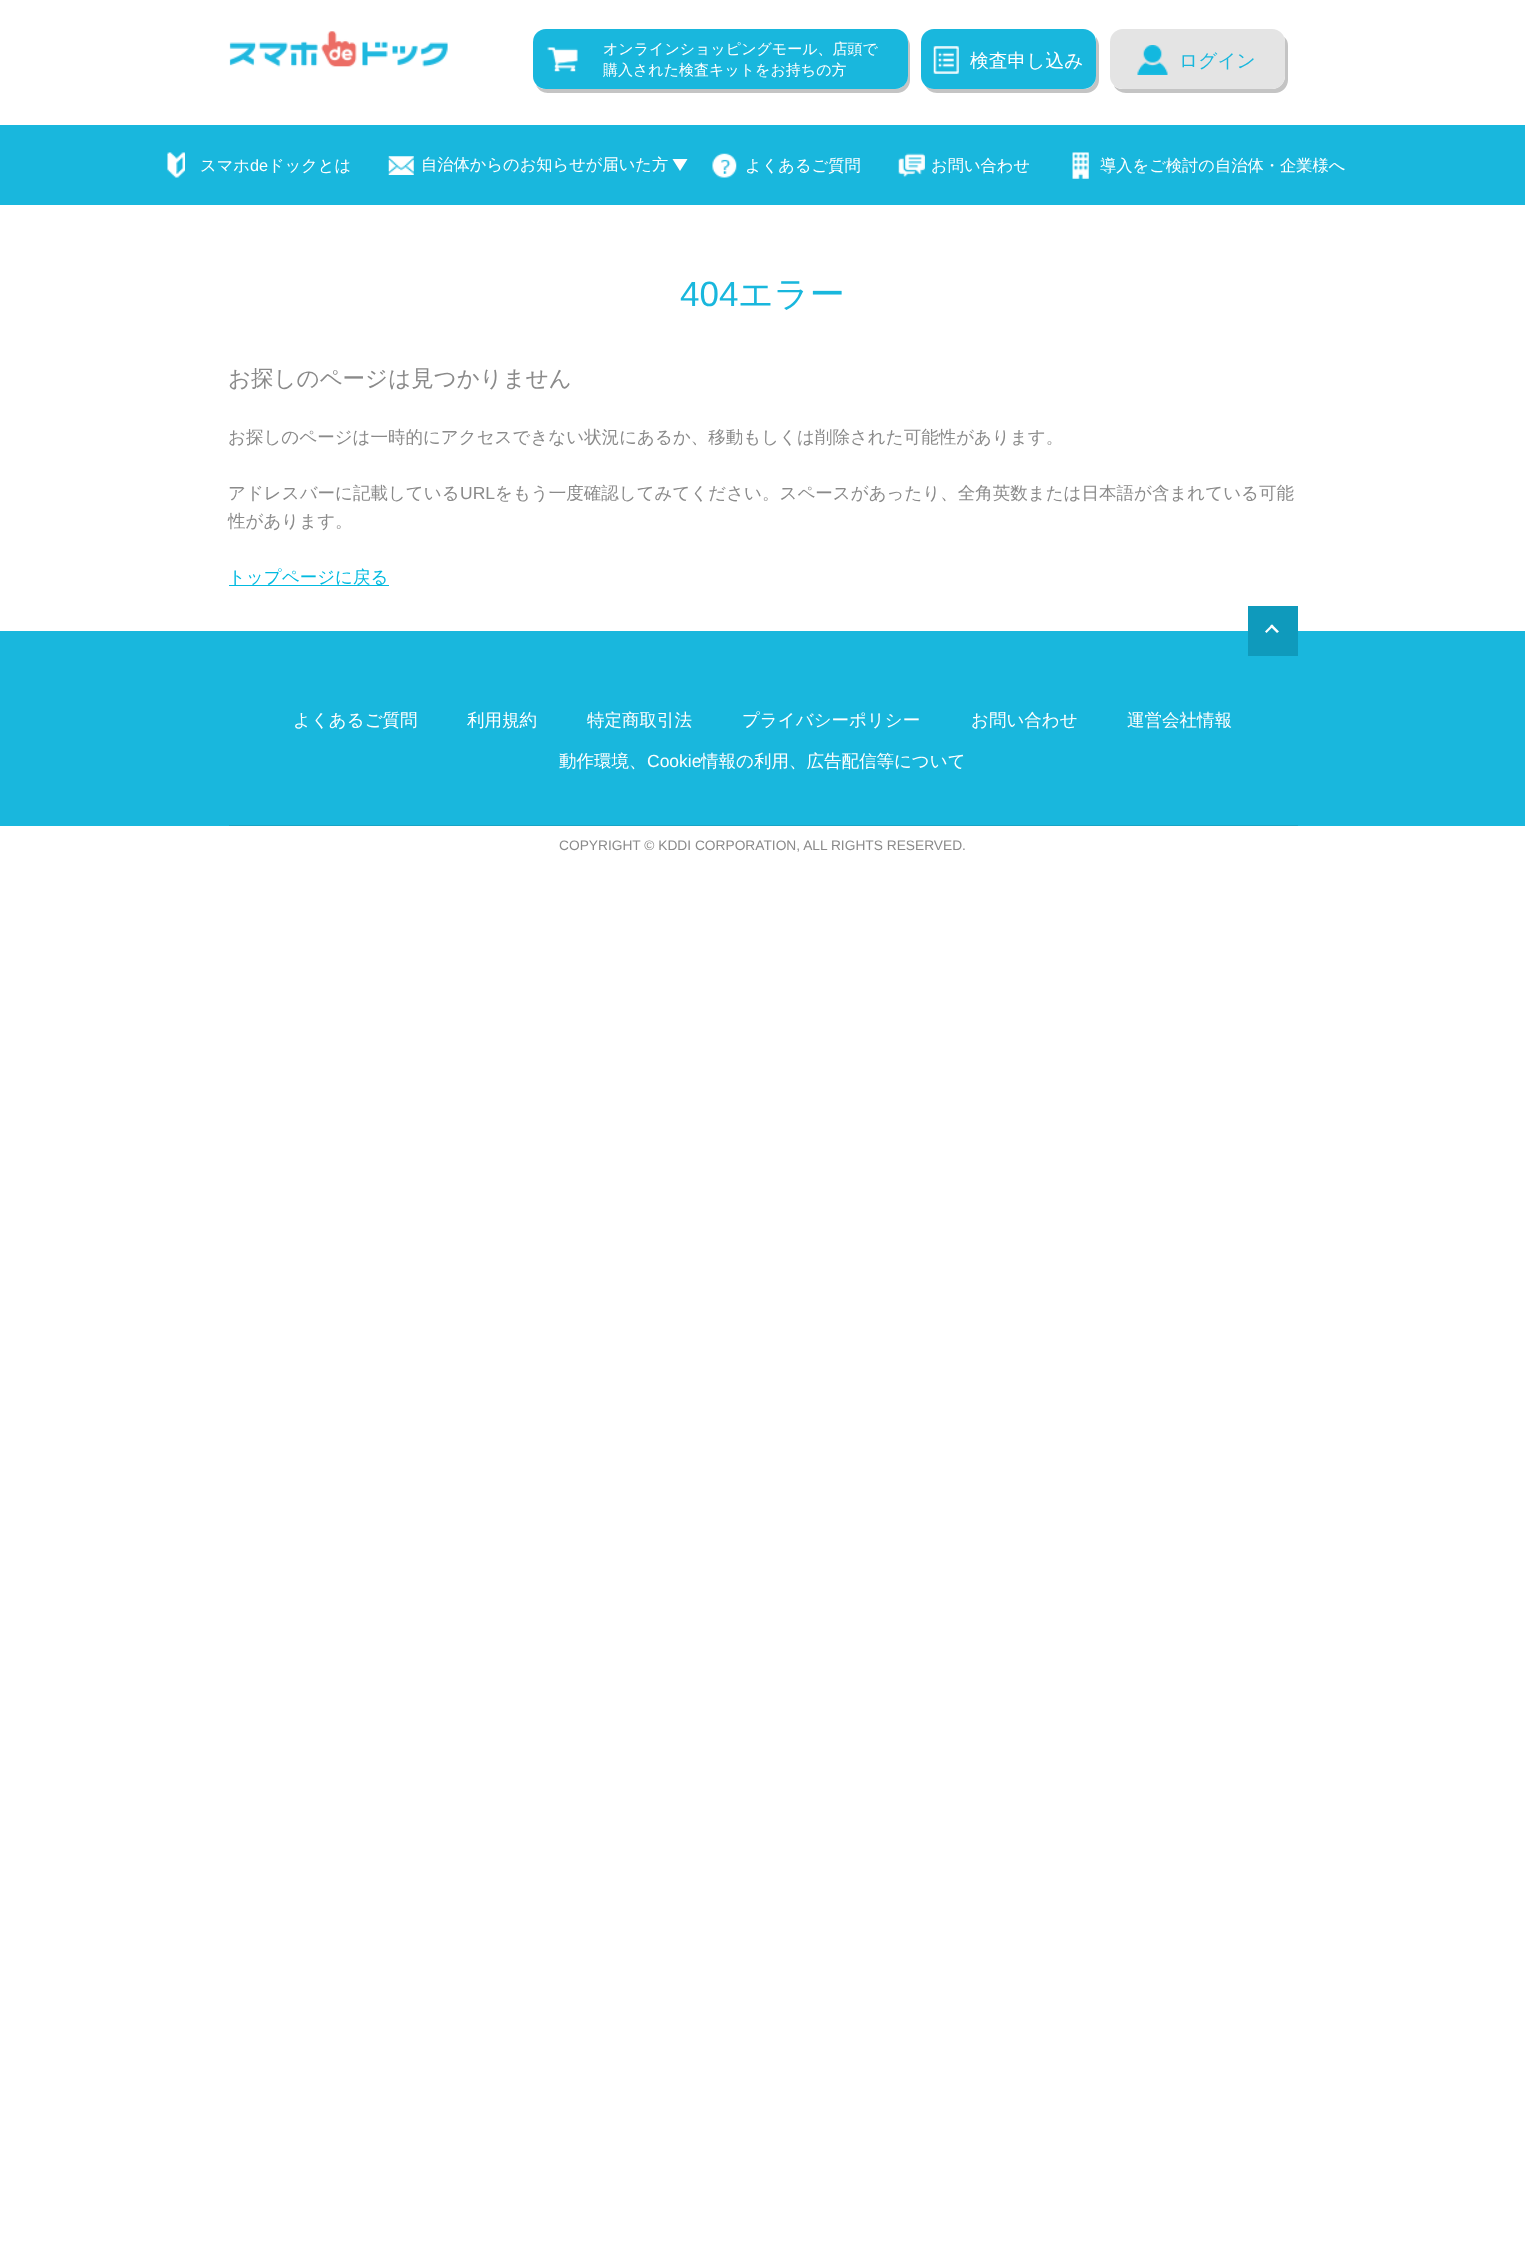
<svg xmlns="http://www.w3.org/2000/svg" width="1525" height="2243">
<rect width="100%" height="100%" fill="#fff"/>
<image x="229" y="31" width="219" height="36" href="media/1.png"/>
<path d="M536 85c2 5 7 8 12 8h349c7 0 13-6 13-13v-34c0-3-1-6-3-8l1 3v35c0 7-6 13-13 13h-350c-4 0-7-2-9-4z" fill="#c4c4c4"/>
<rect x="533" y="29" width="375" height="60" rx="13" fill="#19b7dd"/>
<image x="547" y="47" width="31" height="25" href="media/2.png"/>
<text x="603" y="54" style="font-family:WenQuanYi Zen Hei;font-size:15px;font-weight:500;fill:#fff">オンラインショッピングモール、店頭で</text>
<text x="603" y="75" style="font-family:WenQuanYi Zen Hei;font-size:15px;font-weight:500;fill:#fff">購入された検査キットをお持ちの方</text>
<path d="M925 85c2 5 7 8 12 8h149c7 0 13-6 13-13v-34c0-3-1-6-3-9v4v35c0 7-5 13-12 13h-150c-4 0-7-2-9-4z" fill="#c4c4c4"/>
<rect x="921" y="29" width="175" height="60" rx="13" fill="#19b7dd"/>
<image x="933" y="46" width="26" height="28" href="media/3.png"/>
<text x="970" y="67" style="font-family:WenQuanYi Zen Hei;font-size:18.75px;font-weight:500;fill:#fff">検査申し込み</text>
<path d="M1114 86c2 4 7 7 12 7h149c7 0 13-6 13-13v-34c0-4-1-7-4-9l1 4v35c0 7-6 13-13 13h-150c-3 0-5-1-8-3z" fill="#c4c4c4"/>
<rect x="1110" y="29" width="175" height="60" rx="13" fill="#e4e4e4"/>
<image x="1137" y="45" width="31" height="30" href="media/4.png"/>
<text x="1179" y="67" style="font-family:WenQuanYi Zen Hei;font-size:18.75px;font-weight:500;fill:#19b7dd">ログイン</text>
<rect y="125" width="1525" height="80" fill="#19b7dd"/>
<image x="167" y="152" width="18" height="26" href="media/5.png"/>
<text x="200" y="171" style="font-family:WenQuanYi Zen Hei;font-size:16.25px;font-weight:500;fill:#fff">スマホ</text>
<text x="250" y="171" style="font-family:Liberation Sans;font-size:16.25px;fill:#fff">de</text>
<text x="268" y="171" style="font-family:WenQuanYi Zen Hei;font-size:16.25px;font-weight:500;fill:#fff">ドックとは</text>
<image x="388" y="156" width="26" height="19" href="media/6.png"/>
<text x="421" y="170" style="font-family:WenQuanYi Zen Hei;font-size:16.25px;font-weight:500;fill:#fff">自治体からのお知らせが届いた方</text>
<path d="M672.5 159h15l-7.5 12z" fill="#fff"/>
<image x="712" y="153" width="25" height="25" href="media/7.png"/>
<text x="745" y="171" style="font-family:WenQuanYi Zen Hei;font-size:16.25px;font-weight:500;fill:#fff">よくあるご質問</text>
<image x="898" y="153" width="27" height="25" href="media/8.png"/>
<text x="931" y="171" style="font-family:WenQuanYi Zen Hei;font-size:16.25px;font-weight:500;fill:#fff">お問い合わせ</text>
<image x="1072" y="152" width="17" height="27" href="media/9.png"/>
<text x="1100" y="171" style="font-family:WenQuanYi Zen Hei;font-size:16.25px;font-weight:500;fill:#fff">導入をご検討の自治体・企業様へ</text>
<text x="680" y="306" style="font-family:Liberation Sans;font-size:35px;fill:#19b7dd">404</text>
<text x="738" y="306" style="font-family:WenQuanYi Zen Hei;font-size:35px;font-weight:500;fill:#19b7dd">エラー</text>
<text x="228" y="386" style="font-family:WenQuanYi Zen Hei;font-size:22.5px;font-weight:500;fill:#8a8a8a">お探しのページは見つかりません</text>
<text x="228" y="443" style="font-family:WenQuanYi Zen Hei;font-size:17.5px;font-weight:500;fill:#8a8a8a">お探しのページは一時的にアクセスできない状況にあるか、移動もしくは削除された可能性があります。</text>
<text x="228" y="499" style="font-family:WenQuanYi Zen Hei;font-size:17.5px;font-weight:500;fill:#8a8a8a">アドレスバーに記載している</text>
<text x="460" y="499" style="font-family:Liberation Sans;font-size:17.5px;fill:#8a8a8a">URL</text>
<text x="495" y="499" style="font-family:WenQuanYi Zen Hei;font-size:17.5px;font-weight:500;fill:#8a8a8a">をもう一度確認してみてください。スペースがあったり、全角英数または日本語が含まれている可能</text>
<text x="228" y="527" style="font-family:WenQuanYi Zen Hei;font-size:17.5px;font-weight:500;fill:#8a8a8a">性があります。</text>
<rect x="229" y="585" width="160" height="1" fill="#02bae0"/>
<text x="228" y="583" style="font-family:WenQuanYi Zen Hei;font-size:17.5px;font-weight:500;fill:#02bae0">トップページに戻る</text>
<rect y="631" width="1525" height="195" fill="#19b7dd"/>
<rect x="1248" y="606" width="50" height="50" fill="#0f9abc"/>
<path d="M1265 631.5l7-7l1.5 1.5l-7 7z" fill="#fff"/>
<path d="M1270 626l2-1.5l7 7l-2 1.5z" fill="#fff"/>
<rect x="229" y="825" width="1069" height="1" fill="#18a3c5"/>
<text x="293" y="726" style="font-family:WenQuanYi Zen Hei;font-size:17.5px;font-weight:500;fill:#fff">よくあるご質問</text>
<text x="467" y="726" style="font-family:WenQuanYi Zen Hei;font-size:17.5px;font-weight:500;fill:#fff">利用規約</text>
<text x="587" y="726" style="font-family:WenQuanYi Zen Hei;font-size:17.5px;font-weight:500;fill:#fff">特定商取引法</text>
<text x="742" y="726" style="font-family:WenQuanYi Zen Hei;font-size:17.5px;font-weight:500;fill:#fff">プライバシーポリシー</text>
<text x="971" y="726" style="font-family:WenQuanYi Zen Hei;font-size:17.5px;font-weight:500;fill:#fff">お問い合わせ</text>
<text x="1127" y="726" style="font-family:WenQuanYi Zen Hei;font-size:17.5px;font-weight:500;fill:#fff">運営会社情報</text>
<text x="559" y="767" style="font-family:WenQuanYi Zen Hei;font-size:17.5px;font-weight:500;fill:#fff">動作環境、</text>
<text x="647" y="767" style="font-family:Liberation Sans;font-size:17.5px;fill:#fff">Cookie</text>
<text x="701" y="767" style="font-family:WenQuanYi Zen Hei;font-size:17.5px;font-weight:500;fill:#fff">情報の利用、広告配信等について</text>
<text x="559" y="850" style="font-family:Liberation Sans;font-size:13.75px;fill:#8a8a8a">COPYRIGHT © KDDI CORPORATION, ALL RIGHTS RESERVED.</text>
</svg>
